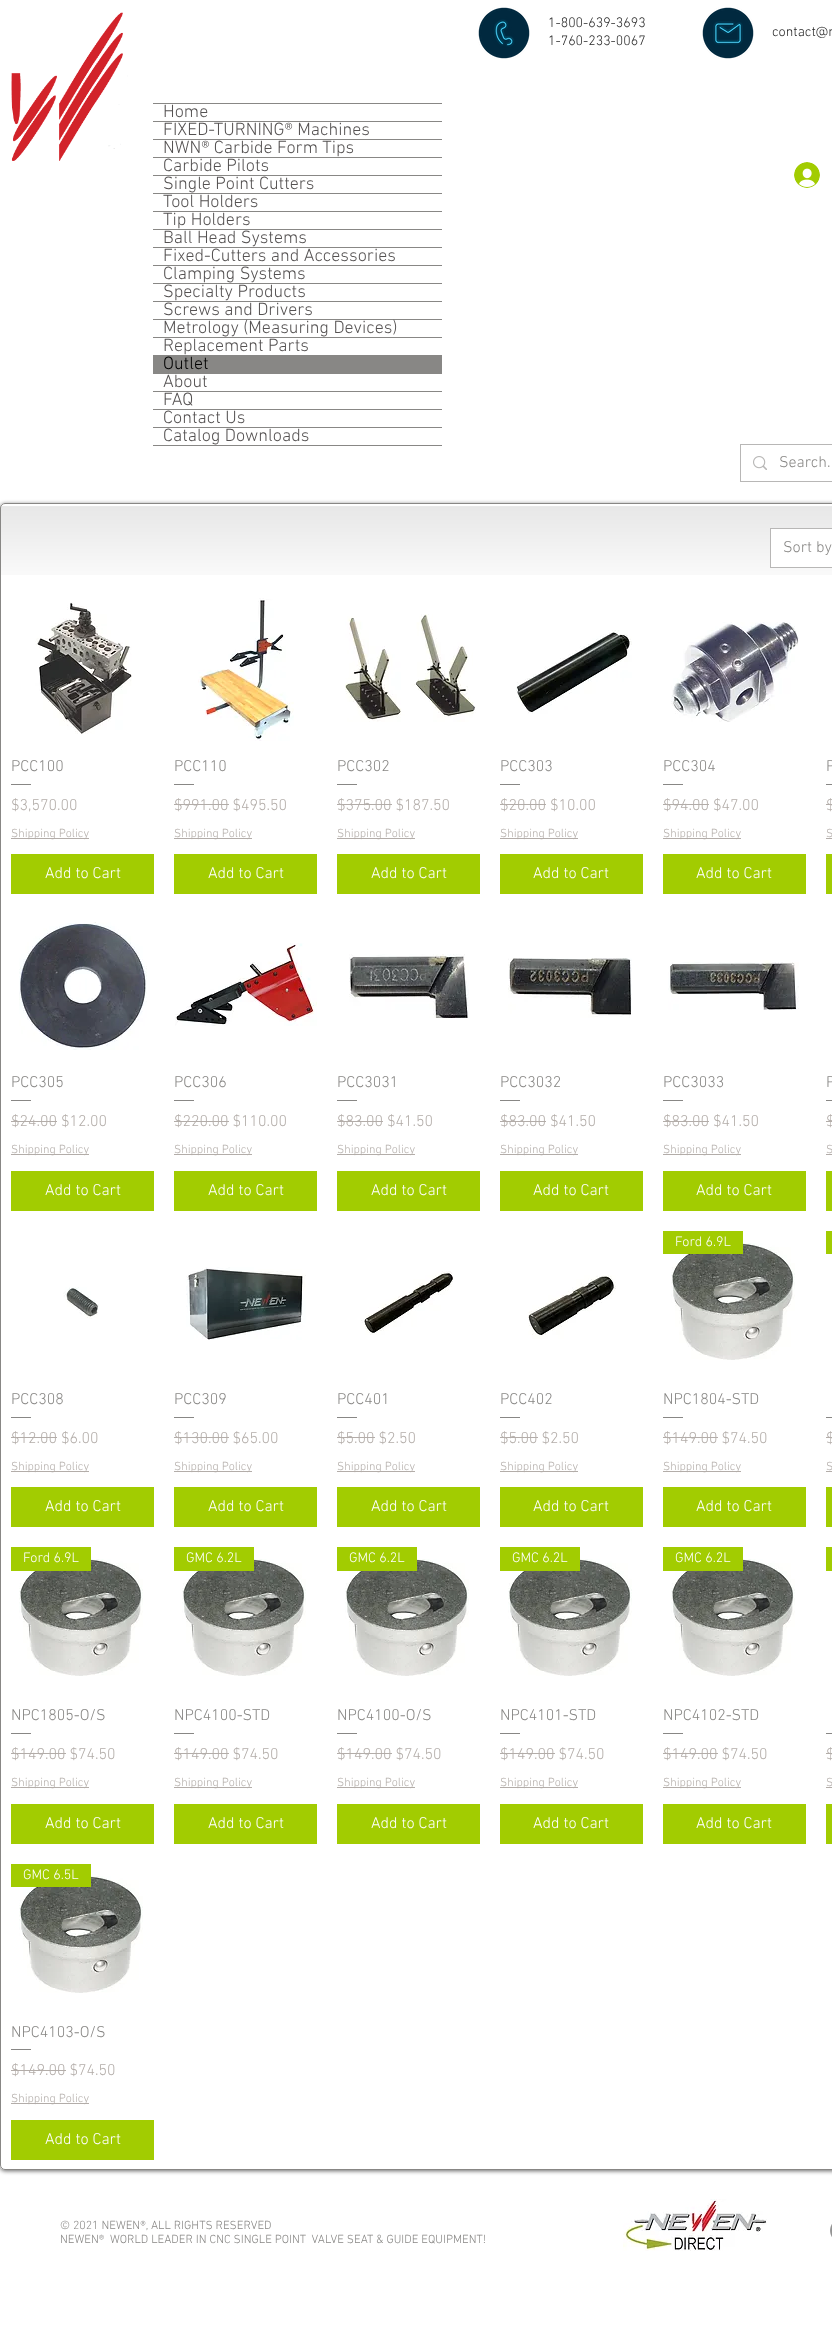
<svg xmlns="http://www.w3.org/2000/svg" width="832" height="2326">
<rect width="100%" height="100%" fill="#fff"/>
<image x="11" y="12" width="117" height="149" href="media/1.png"/>
<image x="478" y="7" width="52" height="52" href="media/2.png"/>
<text x="548" y="27" style="font-family:'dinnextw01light';font-size:14px;font-weight:300;fill:#292929">1-800-639-3693</text>
<text x="548" y="45" style="font-family:'dinnextw01light';font-size:14px;font-weight:300;fill:#292929">1-760-233-0067</text>
<image x="702" y="7" width="52" height="52" href="media/3.png"/>
<text x="772" y="36" style="font-family:'dinnextw01light';font-size:14px;font-weight:300;fill:#292929">contact@n</text>
<rect x="153" y="103" width="289" height="1" fill="#888785"/>
<rect x="153" y="445" width="289" height="1" fill="#888785"/>
<rect x="153" y="121" width="289" height="1" fill="#888785"/>
<text x="163" y="117" style="font-family:'dinnextw01light';font-size:18px;font-weight:300;fill:#555252">Home</text>
<rect x="153" y="139" width="289" height="1" fill="#888785"/>
<text x="163" y="135" style="font-family:'dinnextw01light';font-size:18px;font-weight:300;fill:#555252">FIXED-TURNING® Machines</text>
<rect x="153" y="157" width="289" height="1" fill="#888785"/>
<text x="163" y="153" style="font-family:'dinnextw01light';font-size:18px;font-weight:300;fill:#555252">NWN® Carbide Form Tips</text>
<rect x="153" y="175" width="289" height="1" fill="#888785"/>
<text x="163" y="171" style="font-family:'dinnextw01light';font-size:18px;font-weight:300;fill:#555252">Carbide Pilots</text>
<rect x="153" y="193" width="289" height="1" fill="#888785"/>
<text x="163" y="189" style="font-family:'dinnextw01light';font-size:18px;font-weight:300;fill:#555252">Single Point Cutters</text>
<rect x="153" y="211" width="289" height="1" fill="#888785"/>
<text x="163" y="207" style="font-family:'dinnextw01light';font-size:18px;font-weight:300;fill:#555252">Tool Holders</text>
<rect x="153" y="229" width="289" height="1" fill="#888785"/>
<text x="163" y="225" style="font-family:'dinnextw01light';font-size:18px;font-weight:300;fill:#555252">Tip Holders</text>
<rect x="153" y="247" width="289" height="1" fill="#888785"/>
<text x="163" y="243" style="font-family:'dinnextw01light';font-size:18px;font-weight:300;fill:#555252">Ball Head Systems</text>
<rect x="153" y="265" width="289" height="1" fill="#888785"/>
<text x="163" y="261" style="font-family:'dinnextw01light';font-size:18px;font-weight:300;fill:#555252">Fixed-Cutters and Accessories</text>
<rect x="153" y="283" width="289" height="1" fill="#888785"/>
<text x="163" y="279" style="font-family:'dinnextw01light';font-size:18px;font-weight:300;fill:#555252">Clamping Systems</text>
<rect x="153" y="301" width="289" height="1" fill="#888785"/>
<text x="163" y="297" style="font-family:'dinnextw01light';font-size:18px;font-weight:300;fill:#555252">Specialty Products</text>
<rect x="153" y="319" width="289" height="1" fill="#888785"/>
<text x="163" y="315" style="font-family:'dinnextw01light';font-size:18px;font-weight:300;fill:#555252">Screws and Drivers</text>
<rect x="153" y="337" width="289" height="1" fill="#888785"/>
<text x="163" y="333" style="font-family:'dinnextw01light';font-size:18px;font-weight:300;fill:#555252">Metrology (Measuring Devices)</text>
<rect x="153" y="355" width="289" height="1" fill="#888785"/>
<text x="163" y="351" style="font-family:'dinnextw01light';font-size:18px;font-weight:300;fill:#555252">Replacement Parts</text>
<rect x="153" y="356" width="289" height="18" fill="#888785"/>
<text x="163" y="369" style="font-family:'dinnextw01light';font-size:18px;font-weight:300;fill:#000">Outlet</text>
<rect x="153" y="391" width="289" height="1" fill="#888785"/>
<text x="163" y="387" style="font-family:'dinnextw01light';font-size:18px;font-weight:300;fill:#555252">About</text>
<rect x="153" y="409" width="289" height="1" fill="#888785"/>
<text x="163" y="405" style="font-family:'dinnextw01light';font-size:18px;font-weight:300;fill:#555252">FAQ</text>
<rect x="153" y="427" width="289" height="1" fill="#888785"/>
<text x="163" y="423" style="font-family:'dinnextw01light';font-size:18px;font-weight:300;fill:#555252">Contact Us</text>
<text x="163" y="441" style="font-family:'dinnextw01light';font-size:18px;font-weight:300;fill:#555252">Catalog Downloads</text>
<image x="794" y="162" width="26" height="26" href="media/4.png"/>
<rect x="740.5" y="444.5" width="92" height="37" fill="none" stroke="#b8b7b6"/>
<image x="753" y="456" width="14" height="14" href="media/5.png"/>
<text x="779" y="467" style="font-family:'dinnextw01light';font-size:16px;font-weight:300;fill:#888785">Search.</text>
<rect y="504" width="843" height="1667" rx="5" fill="#00000099" filter="blur(2px)"/>
<rect y="503" width="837" height="1667" rx="5" fill="#fff"/>
<image x="0" y="506" width="832" height="69" href="media/6.png"/>
<rect x="0.5" y="503.5" width="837" height="1666" rx="4.5" fill="none" stroke="#888785"/>
<rect x="770.5" y="528.5" width="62" height="39" fill="#fff" stroke="#b8b7b6"/>
<text x="783" y="552" style="font-family:'dinnextw01light';font-size:16px;font-weight:300;fill:#888785">Sort by</text>
<image x="35" y="602" width="97" height="132" href="media/7.png"/>
<text x="11" y="771" style="font-family:'dinnextw01light';font-size:16px;font-weight:300;fill:#888785">PCC100</text>
<rect x="11" y="784" width="20" height="1" fill="#888785"/>
<text x="11" y="810" style="font-family:'dinnextw01light';font-size:16px;font-weight:300;fill:#b3ada9">$3,570.00</text>
<rect x="11" y="838" width="78" height="1" fill="#b3ada9"/>
<text x="11" y="837" style="font-family:'dinnextw01light';font-size:12px;font-weight:300;fill:#b3ada9">Shipping Policy</text>
<rect x="11" y="854" width="143" height="40" fill="#a2cc01"/>
<text x="45" y="878" style="font-family:'dinnextw01light';font-size:16px;font-weight:300;fill:#fff">Add to Cart</text>
<image x="198" y="598" width="96" height="143" href="media/8.png"/>
<text x="174" y="771" style="font-family:'dinnextw01light';font-size:16px;font-weight:300;fill:#888785">PCC110</text>
<rect x="174" y="784" width="20" height="1" fill="#888785"/>
<text x="174" y="810" style="font-family:'dinnextw01light';font-size:16px;font-weight:300;fill:#b3ada9">$991.00 $495.50</text>
<rect x="174" y="804" width="55" height="1" fill="#b3ada9"/>
<rect x="174" y="838" width="78" height="1" fill="#b3ada9"/>
<text x="174" y="837" style="font-family:'dinnextw01light';font-size:12px;font-weight:300;fill:#b3ada9">Shipping Policy</text>
<rect x="174" y="854" width="143" height="40" fill="#a2cc01"/>
<text x="208" y="878" style="font-family:'dinnextw01light';font-size:16px;font-weight:300;fill:#fff">Add to Cart</text>
<image x="345" y="614" width="131" height="108" href="media/9.png"/>
<text x="337" y="771" style="font-family:'dinnextw01light';font-size:16px;font-weight:300;fill:#888785">PCC302</text>
<rect x="337" y="784" width="20" height="1" fill="#888785"/>
<text x="337" y="810" style="font-family:'dinnextw01light';font-size:16px;font-weight:300;fill:#b3ada9">$375.00 $187.50</text>
<rect x="337" y="804" width="55" height="1" fill="#b3ada9"/>
<rect x="337" y="838" width="78" height="1" fill="#b3ada9"/>
<text x="337" y="837" style="font-family:'dinnextw01light';font-size:12px;font-weight:300;fill:#b3ada9">Shipping Policy</text>
<rect x="337" y="854" width="143" height="40" fill="#a2cc01"/>
<text x="371" y="878" style="font-family:'dinnextw01light';font-size:16px;font-weight:300;fill:#fff">Add to Cart</text>
<image x="516" y="630" width="116" height="84" href="media/10.png"/>
<text x="500" y="771" style="font-family:'dinnextw01light';font-size:16px;font-weight:300;fill:#888785">PCC303</text>
<rect x="500" y="784" width="20" height="1" fill="#888785"/>
<text x="500" y="810" style="font-family:'dinnextw01light';font-size:16px;font-weight:300;fill:#b3ada9">$20.00 $10.00</text>
<rect x="500" y="804" width="46" height="1" fill="#b3ada9"/>
<rect x="500" y="838" width="78" height="1" fill="#b3ada9"/>
<text x="500" y="837" style="font-family:'dinnextw01light';font-size:12px;font-weight:300;fill:#b3ada9">Shipping Policy</text>
<rect x="500" y="854" width="143" height="40" fill="#a2cc01"/>
<text x="533" y="878" style="font-family:'dinnextw01light';font-size:16px;font-weight:300;fill:#fff">Add to Cart</text>
<image x="671" y="622" width="128" height="100" href="media/11.png"/>
<text x="663" y="771" style="font-family:'dinnextw01light';font-size:16px;font-weight:300;fill:#888785">PCC304</text>
<rect x="663" y="784" width="20" height="1" fill="#888785"/>
<text x="663" y="810" style="font-family:'dinnextw01light';font-size:16px;font-weight:300;fill:#b3ada9">$94.00 $47.00</text>
<rect x="663" y="804" width="46" height="1" fill="#b3ada9"/>
<rect x="663" y="838" width="78" height="1" fill="#b3ada9"/>
<text x="663" y="837" style="font-family:'dinnextw01light';font-size:12px;font-weight:300;fill:#b3ada9">Shipping Policy</text>
<rect x="663" y="854" width="143" height="40" fill="#a2cc01"/>
<text x="696" y="878" style="font-family:'dinnextw01light';font-size:16px;font-weight:300;fill:#fff">Add to Cart</text>
<text x="826" y="771" style="font-family:'dinnextw01light';font-size:16px;font-weight:300;fill:#888785">P</text>
<rect x="826" y="784" width="6" height="1" fill="#888785"/>
<text x="826" y="810" style="font-family:'dinnextw01light';font-size:16px;font-weight:300;fill:#b3ada9">$</text>
<rect x="826" y="804" width="6" height="1" fill="#b3ada9"/>
<text x="826" y="837" style="font-family:'dinnextw01light';font-size:12px;font-weight:300;fill:#b3ada9">S</text>
<rect x="826" y="838" width="6" height="1" fill="#b3ada9"/>
<rect x="826" y="854" width="6" height="40" fill="#a2cc01"/>
<image x="19" y="922" width="128" height="128" href="media/12.png"/>
<text x="11" y="1087" style="font-family:'dinnextw01light';font-size:16px;font-weight:300;fill:#888785">PCC305</text>
<rect x="11" y="1100" width="20" height="1" fill="#888785"/>
<text x="11" y="1126" style="font-family:'dinnextw01light';font-size:16px;font-weight:300;fill:#b3ada9">$24.00 $12.00</text>
<rect x="11" y="1121" width="46" height="1" fill="#b3ada9"/>
<rect x="11" y="1154" width="78" height="1" fill="#b3ada9"/>
<text x="11" y="1153" style="font-family:'dinnextw01light';font-size:12px;font-weight:300;fill:#b3ada9">Shipping Policy</text>
<rect x="11" y="1171" width="143" height="40" fill="#a2cc01"/>
<text x="45" y="1195" style="font-family:'dinnextw01light';font-size:16px;font-weight:300;fill:#fff">Add to Cart</text>
<image x="175" y="943" width="142" height="83" href="media/13.png"/>
<text x="174" y="1087" style="font-family:'dinnextw01light';font-size:16px;font-weight:300;fill:#888785">PCC306</text>
<rect x="174" y="1100" width="20" height="1" fill="#888785"/>
<text x="174" y="1126" style="font-family:'dinnextw01light';font-size:16px;font-weight:300;fill:#b3ada9">$220.00 $110.00</text>
<rect x="174" y="1121" width="55" height="1" fill="#b3ada9"/>
<rect x="174" y="1154" width="78" height="1" fill="#b3ada9"/>
<text x="174" y="1153" style="font-family:'dinnextw01light';font-size:12px;font-weight:300;fill:#b3ada9">Shipping Policy</text>
<rect x="174" y="1171" width="143" height="40" fill="#a2cc01"/>
<text x="208" y="1195" style="font-family:'dinnextw01light';font-size:16px;font-weight:300;fill:#fff">Add to Cart</text>
<image x="349" y="954" width="120" height="64" href="media/14.png"/>
<text x="337" y="1087" style="font-family:'dinnextw01light';font-size:16px;font-weight:300;fill:#888785">PCC3031</text>
<rect x="337" y="1100" width="20" height="1" fill="#888785"/>
<text x="337" y="1126" style="font-family:'dinnextw01light';font-size:16px;font-weight:300;fill:#b3ada9">$83.00 $41.50</text>
<rect x="337" y="1121" width="46" height="1" fill="#b3ada9"/>
<rect x="337" y="1154" width="78" height="1" fill="#b3ada9"/>
<text x="337" y="1153" style="font-family:'dinnextw01light';font-size:12px;font-weight:300;fill:#b3ada9">Shipping Policy</text>
<rect x="337" y="1171" width="143" height="40" fill="#a2cc01"/>
<text x="371" y="1195" style="font-family:'dinnextw01light';font-size:16px;font-weight:300;fill:#fff">Add to Cart</text>
<image x="508" y="958" width="124" height="60" href="media/15.png"/>
<text x="500" y="1087" style="font-family:'dinnextw01light';font-size:16px;font-weight:300;fill:#888785">PCC3032</text>
<rect x="500" y="1100" width="20" height="1" fill="#888785"/>
<text x="500" y="1126" style="font-family:'dinnextw01light';font-size:16px;font-weight:300;fill:#b3ada9">$83.00 $41.50</text>
<rect x="500" y="1121" width="46" height="1" fill="#b3ada9"/>
<rect x="500" y="1154" width="78" height="1" fill="#b3ada9"/>
<text x="500" y="1153" style="font-family:'dinnextw01light';font-size:12px;font-weight:300;fill:#b3ada9">Shipping Policy</text>
<rect x="500" y="1171" width="143" height="40" fill="#a2cc01"/>
<text x="533" y="1195" style="font-family:'dinnextw01light';font-size:16px;font-weight:300;fill:#fff">Add to Cart</text>
<image x="668" y="960" width="131" height="50" href="media/16.png"/>
<text x="663" y="1087" style="font-family:'dinnextw01light';font-size:16px;font-weight:300;fill:#888785">PCC3033</text>
<rect x="663" y="1100" width="20" height="1" fill="#888785"/>
<text x="663" y="1126" style="font-family:'dinnextw01light';font-size:16px;font-weight:300;fill:#b3ada9">$83.00 $41.50</text>
<rect x="663" y="1121" width="46" height="1" fill="#b3ada9"/>
<rect x="663" y="1154" width="78" height="1" fill="#b3ada9"/>
<text x="663" y="1153" style="font-family:'dinnextw01light';font-size:12px;font-weight:300;fill:#b3ada9">Shipping Policy</text>
<rect x="663" y="1171" width="143" height="40" fill="#a2cc01"/>
<text x="696" y="1195" style="font-family:'dinnextw01light';font-size:16px;font-weight:300;fill:#fff">Add to Cart</text>
<text x="826" y="1087" style="font-family:'dinnextw01light';font-size:16px;font-weight:300;fill:#888785">P</text>
<rect x="826" y="1100" width="6" height="1" fill="#888785"/>
<text x="826" y="1126" style="font-family:'dinnextw01light';font-size:16px;font-weight:300;fill:#b3ada9">$</text>
<rect x="826" y="1121" width="6" height="1" fill="#b3ada9"/>
<text x="826" y="1153" style="font-family:'dinnextw01light';font-size:12px;font-weight:300;fill:#b3ada9">S</text>
<rect x="826" y="1154" width="6" height="1" fill="#b3ada9"/>
<rect x="826" y="1171" width="6" height="40" fill="#a2cc01"/>
<image x="63" y="1287" width="36" height="32" href="media/17.png"/>
<text x="11" y="1404" style="font-family:'dinnextw01light';font-size:16px;font-weight:300;fill:#888785">PCC308</text>
<rect x="11" y="1417" width="20" height="1" fill="#888785"/>
<text x="11" y="1443" style="font-family:'dinnextw01light';font-size:16px;font-weight:300;fill:#b3ada9">$12.00 $6.00</text>
<rect x="11" y="1437" width="46" height="1" fill="#b3ada9"/>
<rect x="11" y="1471" width="78" height="1" fill="#b3ada9"/>
<text x="11" y="1470" style="font-family:'dinnextw01light';font-size:12px;font-weight:300;fill:#b3ada9">Shipping Policy</text>
<rect x="11" y="1487" width="143" height="40" fill="#a2cc01"/>
<text x="45" y="1511" style="font-family:'dinnextw01light';font-size:16px;font-weight:300;fill:#fff">Add to Cart</text>
<image x="186" y="1267" width="120" height="73" href="media/18.png"/>
<text x="174" y="1404" style="font-family:'dinnextw01light';font-size:16px;font-weight:300;fill:#888785">PCC309</text>
<rect x="174" y="1417" width="20" height="1" fill="#888785"/>
<text x="174" y="1443" style="font-family:'dinnextw01light';font-size:16px;font-weight:300;fill:#b3ada9">$130.00 $65.00</text>
<rect x="174" y="1437" width="55" height="1" fill="#b3ada9"/>
<rect x="174" y="1471" width="78" height="1" fill="#b3ada9"/>
<text x="174" y="1470" style="font-family:'dinnextw01light';font-size:12px;font-weight:300;fill:#b3ada9">Shipping Policy</text>
<rect x="174" y="1487" width="143" height="40" fill="#a2cc01"/>
<text x="208" y="1511" style="font-family:'dinnextw01light';font-size:16px;font-weight:300;fill:#fff">Add to Cart</text>
<image x="361" y="1271" width="92" height="64" href="media/19.png"/>
<text x="337" y="1404" style="font-family:'dinnextw01light';font-size:16px;font-weight:300;fill:#888785">PCC401</text>
<rect x="337" y="1417" width="20" height="1" fill="#888785"/>
<text x="337" y="1443" style="font-family:'dinnextw01light';font-size:16px;font-weight:300;fill:#b3ada9">$5.00 $2.50</text>
<rect x="337" y="1437" width="38" height="1" fill="#b3ada9"/>
<rect x="337" y="1471" width="78" height="1" fill="#b3ada9"/>
<text x="337" y="1470" style="font-family:'dinnextw01light';font-size:12px;font-weight:300;fill:#b3ada9">Shipping Policy</text>
<rect x="337" y="1487" width="143" height="40" fill="#a2cc01"/>
<text x="371" y="1511" style="font-family:'dinnextw01light';font-size:16px;font-weight:300;fill:#fff">Add to Cart</text>
<image x="528" y="1275" width="88" height="64" href="media/20.png"/>
<text x="500" y="1404" style="font-family:'dinnextw01light';font-size:16px;font-weight:300;fill:#888785">PCC402</text>
<rect x="500" y="1417" width="20" height="1" fill="#888785"/>
<text x="500" y="1443" style="font-family:'dinnextw01light';font-size:16px;font-weight:300;fill:#b3ada9">$5.00 $2.50</text>
<rect x="500" y="1437" width="38" height="1" fill="#b3ada9"/>
<rect x="500" y="1471" width="78" height="1" fill="#b3ada9"/>
<text x="500" y="1470" style="font-family:'dinnextw01light';font-size:12px;font-weight:300;fill:#b3ada9">Shipping Policy</text>
<rect x="500" y="1487" width="143" height="40" fill="#a2cc01"/>
<text x="533" y="1511" style="font-family:'dinnextw01light';font-size:16px;font-weight:300;fill:#fff">Add to Cart</text>
<image x="671" y="1243" width="124" height="117" href="media/21.png"/>
<rect x="663" y="1231" width="80" height="23" fill="#a2cc01"/>
<text x="675" y="1246" style="font-family:'dinnextw01light';font-size:14px;font-weight:300;fill:#fff">Ford 6.9L</text>
<text x="663" y="1404" style="font-family:'dinnextw01light';font-size:16px;font-weight:300;fill:#888785">NPC1804-STD</text>
<rect x="663" y="1417" width="20" height="1" fill="#888785"/>
<text x="663" y="1443" style="font-family:'dinnextw01light';font-size:16px;font-weight:300;fill:#b3ada9">$149.00 $74.50</text>
<rect x="663" y="1437" width="55" height="1" fill="#b3ada9"/>
<rect x="663" y="1471" width="78" height="1" fill="#b3ada9"/>
<text x="663" y="1470" style="font-family:'dinnextw01light';font-size:12px;font-weight:300;fill:#b3ada9">Shipping Policy</text>
<rect x="663" y="1487" width="143" height="40" fill="#a2cc01"/>
<text x="696" y="1511" style="font-family:'dinnextw01light';font-size:16px;font-weight:300;fill:#fff">Add to Cart</text>
<rect x="826" y="1231" width="6" height="23" fill="#a2cc01"/>
<rect x="826" y="1417" width="6" height="1" fill="#888785"/>
<text x="826" y="1443" style="font-family:'dinnextw01light';font-size:16px;font-weight:300;fill:#b3ada9">$</text>
<rect x="826" y="1437" width="6" height="1" fill="#b3ada9"/>
<text x="826" y="1470" style="font-family:'dinnextw01light';font-size:12px;font-weight:300;fill:#b3ada9">S</text>
<rect x="826" y="1471" width="6" height="1" fill="#b3ada9"/>
<rect x="826" y="1487" width="6" height="40" fill="#a2cc01"/>
<image x="19" y="1559" width="124" height="117" href="media/21.png"/>
<rect x="11" y="1547" width="80" height="24" fill="#a2cc01"/>
<text x="23" y="1562" style="font-family:'dinnextw01light';font-size:14px;font-weight:300;fill:#fff">Ford 6.9L</text>
<text x="11" y="1720" style="font-family:'dinnextw01light';font-size:16px;font-weight:300;fill:#888785">NPC1805-O/S</text>
<rect x="11" y="1733" width="20" height="1" fill="#888785"/>
<text x="11" y="1759" style="font-family:'dinnextw01light';font-size:16px;font-weight:300;fill:#b3ada9">$149.00 $74.50</text>
<rect x="11" y="1753" width="55" height="1" fill="#b3ada9"/>
<rect x="11" y="1787" width="78" height="1" fill="#b3ada9"/>
<text x="11" y="1786" style="font-family:'dinnextw01light';font-size:12px;font-weight:300;fill:#b3ada9">Shipping Policy</text>
<rect x="11" y="1804" width="143" height="40" fill="#a2cc01"/>
<text x="45" y="1828" style="font-family:'dinnextw01light';font-size:16px;font-weight:300;fill:#fff">Add to Cart</text>
<image x="182" y="1559" width="124" height="117" href="media/21.png"/>
<rect x="174" y="1547" width="80" height="24" fill="#a2cc01"/>
<text x="186" y="1562" style="font-family:'dinnextw01light';font-size:14px;font-weight:300;fill:#fff">GMC 6.2L</text>
<text x="174" y="1720" style="font-family:'dinnextw01light';font-size:16px;font-weight:300;fill:#888785">NPC4100-STD</text>
<rect x="174" y="1733" width="20" height="1" fill="#888785"/>
<text x="174" y="1759" style="font-family:'dinnextw01light';font-size:16px;font-weight:300;fill:#b3ada9">$149.00 $74.50</text>
<rect x="174" y="1753" width="55" height="1" fill="#b3ada9"/>
<rect x="174" y="1787" width="78" height="1" fill="#b3ada9"/>
<text x="174" y="1786" style="font-family:'dinnextw01light';font-size:12px;font-weight:300;fill:#b3ada9">Shipping Policy</text>
<rect x="174" y="1804" width="143" height="40" fill="#a2cc01"/>
<text x="208" y="1828" style="font-family:'dinnextw01light';font-size:16px;font-weight:300;fill:#fff">Add to Cart</text>
<image x="345" y="1559" width="124" height="117" href="media/21.png"/>
<rect x="337" y="1547" width="80" height="24" fill="#a2cc01"/>
<text x="349" y="1562" style="font-family:'dinnextw01light';font-size:14px;font-weight:300;fill:#fff">GMC 6.2L</text>
<text x="337" y="1720" style="font-family:'dinnextw01light';font-size:16px;font-weight:300;fill:#888785">NPC4100-O/S</text>
<rect x="337" y="1733" width="20" height="1" fill="#888785"/>
<text x="337" y="1759" style="font-family:'dinnextw01light';font-size:16px;font-weight:300;fill:#b3ada9">$149.00 $74.50</text>
<rect x="337" y="1753" width="55" height="1" fill="#b3ada9"/>
<rect x="337" y="1787" width="78" height="1" fill="#b3ada9"/>
<text x="337" y="1786" style="font-family:'dinnextw01light';font-size:12px;font-weight:300;fill:#b3ada9">Shipping Policy</text>
<rect x="337" y="1804" width="143" height="40" fill="#a2cc01"/>
<text x="371" y="1828" style="font-family:'dinnextw01light';font-size:16px;font-weight:300;fill:#fff">Add to Cart</text>
<image x="508" y="1559" width="124" height="117" href="media/21.png"/>
<rect x="500" y="1547" width="80" height="24" fill="#a2cc01"/>
<text x="512" y="1562" style="font-family:'dinnextw01light';font-size:14px;font-weight:300;fill:#fff">GMC 6.2L</text>
<text x="500" y="1720" style="font-family:'dinnextw01light';font-size:16px;font-weight:300;fill:#888785">NPC4101-STD</text>
<rect x="500" y="1733" width="20" height="1" fill="#888785"/>
<text x="500" y="1759" style="font-family:'dinnextw01light';font-size:16px;font-weight:300;fill:#b3ada9">$149.00 $74.50</text>
<rect x="500" y="1753" width="55" height="1" fill="#b3ada9"/>
<rect x="500" y="1787" width="78" height="1" fill="#b3ada9"/>
<text x="500" y="1786" style="font-family:'dinnextw01light';font-size:12px;font-weight:300;fill:#b3ada9">Shipping Policy</text>
<rect x="500" y="1804" width="143" height="40" fill="#a2cc01"/>
<text x="533" y="1828" style="font-family:'dinnextw01light';font-size:16px;font-weight:300;fill:#fff">Add to Cart</text>
<image x="671" y="1559" width="124" height="117" href="media/21.png"/>
<rect x="663" y="1547" width="80" height="24" fill="#a2cc01"/>
<text x="675" y="1562" style="font-family:'dinnextw01light';font-size:14px;font-weight:300;fill:#fff">GMC 6.2L</text>
<text x="663" y="1720" style="font-family:'dinnextw01light';font-size:16px;font-weight:300;fill:#888785">NPC4102-STD</text>
<rect x="663" y="1733" width="20" height="1" fill="#888785"/>
<text x="663" y="1759" style="font-family:'dinnextw01light';font-size:16px;font-weight:300;fill:#b3ada9">$149.00 $74.50</text>
<rect x="663" y="1753" width="55" height="1" fill="#b3ada9"/>
<rect x="663" y="1787" width="78" height="1" fill="#b3ada9"/>
<text x="663" y="1786" style="font-family:'dinnextw01light';font-size:12px;font-weight:300;fill:#b3ada9">Shipping Policy</text>
<rect x="663" y="1804" width="143" height="40" fill="#a2cc01"/>
<text x="696" y="1828" style="font-family:'dinnextw01light';font-size:16px;font-weight:300;fill:#fff">Add to Cart</text>
<rect x="826" y="1547" width="6" height="24" fill="#a2cc01"/>
<rect x="826" y="1733" width="6" height="1" fill="#888785"/>
<text x="826" y="1759" style="font-family:'dinnextw01light';font-size:16px;font-weight:300;fill:#b3ada9">$</text>
<rect x="826" y="1753" width="6" height="1" fill="#b3ada9"/>
<text x="826" y="1786" style="font-family:'dinnextw01light';font-size:12px;font-weight:300;fill:#b3ada9">S</text>
<rect x="826" y="1787" width="6" height="1" fill="#b3ada9"/>
<rect x="826" y="1804" width="6" height="40" fill="#a2cc01"/>
<image x="19" y="1876" width="124" height="117" href="media/21.png"/>
<rect x="11" y="1864" width="80" height="23" fill="#a2cc01"/>
<text x="23" y="1879" style="font-family:'dinnextw01light';font-size:14px;font-weight:300;fill:#fff">GMC 6.5L</text>
<text x="11" y="2037" style="font-family:'dinnextw01light';font-size:16px;font-weight:300;fill:#888785">NPC4103-O/S</text>
<rect x="11" y="2049" width="20" height="1" fill="#888785"/>
<text x="11" y="2075" style="font-family:'dinnextw01light';font-size:16px;font-weight:300;fill:#b3ada9">$149.00 $74.50</text>
<rect x="11" y="2070" width="55" height="1" fill="#b3ada9"/>
<rect x="11" y="2103" width="78" height="1" fill="#b3ada9"/>
<text x="11" y="2102" style="font-family:'dinnextw01light';font-size:12px;font-weight:300;fill:#b3ada9">Shipping Policy</text>
<rect x="11" y="2120" width="143" height="40" fill="#a2cc01"/>
<text x="45" y="2144" style="font-family:'dinnextw01light';font-size:16px;font-weight:300;fill:#fff">Add to Cart</text>
<text x="60" y="2229" style="font-family:'dinnextw01light';font-size:12px;font-weight:300;fill:#888785">© 2021 NEWEN®, ALL RIGHTS RESERVED</text>
<text x="60" y="2243" style="font-family:'dinnextw01light';font-size:12px;font-weight:300;fill:#888785" xml:space="preserve">NEWEN®  WORLD LEADER IN CNC SINGLE POINT  VALVE SEAT &amp; GUIDE EQUIPMENT!</text>
<image x="623" y="2199" width="144" height="52" href="media/22.png"/>
<image x="830" y="2224" width="2" height="13" href="media/23.png"/>
</svg>
